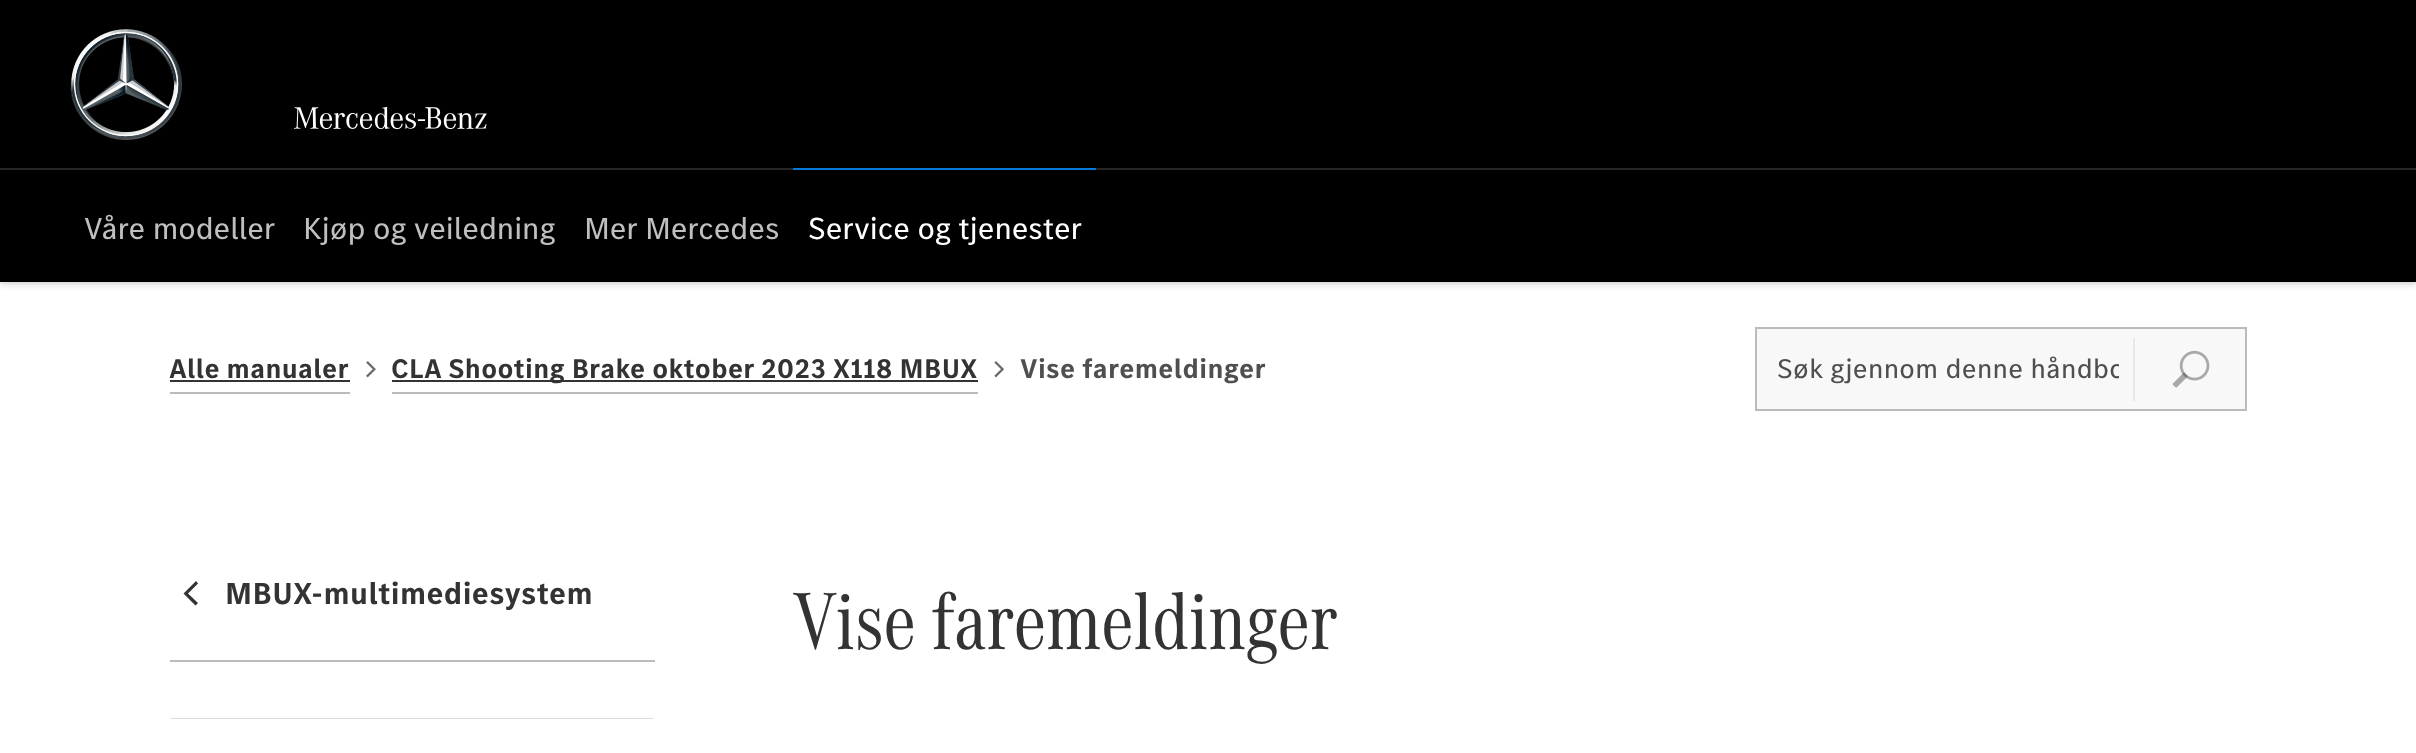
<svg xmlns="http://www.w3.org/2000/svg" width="2416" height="753">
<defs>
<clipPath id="clip1"><rect x="1776" y="348" width="343" height="42"/></clipPath>
</defs>
<rect width="100%" height="100%" fill="#fff"/>
<rect width="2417" height="282" fill="#0000004d" filter="blur(4.5px)"/>
<rect width="2416" height="282" fill="#000"/>
<image x="70" y="29" width="112" height="111" href="media/1.png"/>
<image x="294" y="106" width="193" height="24" href="media/2.png"/>
<rect y="168" width="2416" height="2" fill="#262626"/>
<text x="84" y="239" style="font-family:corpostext;font-size:31.5px;fill:#bfbfbf">Våre modeller</text>
<text x="303" y="239" style="font-family:corpostext;font-size:31.5px;fill:#bfbfbf">Kjøp og veiledning</text>
<text x="584" y="239" style="font-family:corpostext;font-size:31.5px;fill:#bfbfbf">Mer Mercedes</text>
<path d="M793 168v2h303v110v-112z" fill="#0078d6"/>
<text x="808" y="239" style="font-family:corpostext;font-size:31.5px;fill:#fff">Service og tjenester</text>
<rect x="170" y="392" width="180" height="2" fill="#bbb"/>
<text x="169" y="378" style="font-family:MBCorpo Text;font-size:28px;font-weight:bold;letter-spacing:0.35px;fill:#333">Alle manualer</text>
<rect x="170" y="380" width="180" height="2" fill="#333"/>
<image x="366" y="361" width="10" height="17" href="media/3.png"/>
<rect x="392" y="392" width="586" height="2" fill="#bbb"/>
<rect x="392" y="380" width="586" height="2" fill="#333"/>
<text x="391" y="378" style="font-family:MBCorpo Text;font-size:28px;font-weight:bold;letter-spacing:0.35px;fill:#333">CLA Shooting Brake oktober 2023 X118 MBUX</text>
<image x="994" y="361" width="10" height="17" href="media/4.png"/>
<text x="1020" y="378" style="font-family:MBCorpo Text;font-size:28px;font-weight:bold;letter-spacing:0.35px;fill:#4f4f4f">Vise faremeldinger</text>
<rect x="1756" y="328" width="490" height="82" fill="#f8f8f8" stroke="#bbb" stroke-width="2"/>
<g clip-path="url(#clip1)">
<text x="1777" y="378" style="font-family:MBCorpo Text;font-size:28px;letter-spacing:0.35px;fill:#4f4f4f">Søk gjennom denne håndbo</text>
</g>
<rect x="2133" y="338" width="2" height="63" fill="#e8e8e8"/>
<image x="2172" y="350" width="38" height="38" href="media/5.png"/>
<rect x="170" y="660" width="485" height="2" fill="#bbb"/>
<path d="M195.5 605.5l2.5-2.5l-10-9.5l10-10l-2-2.5l-12.5 12.5z" fill="#333"/>
<text x="225" y="604" style="font-family:MBCorpo Text;font-size:31.5px;font-weight:bold;letter-spacing:0.35px;fill:#333">MBUX-multimediesystem</text>
<path d="M170 718h484l-1 1h-481z" fill="#dbdbdb"/>
<text x="794" y="649" style="font-family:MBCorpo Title;font-size:84px;fill:#333">Vise faremeldinger</text>
</svg>
